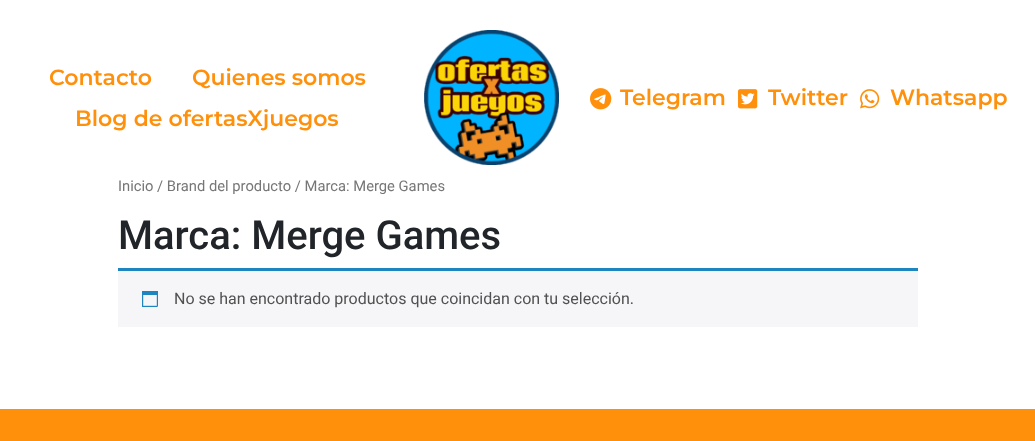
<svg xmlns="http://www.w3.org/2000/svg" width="1035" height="441">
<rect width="100%" height="100%" fill="#fff"/>
<text x="49" y="85" style="font-family:Montserrat;font-size:22px;font-weight:600;fill:#ff900c">Contacto</text>
<text x="192" y="85" style="font-family:Montserrat;font-size:22px;font-weight:600;fill:#ff900c">Quienes somos</text>
<text x="75" y="126" style="font-family:Montserrat;font-size:22px;font-weight:600;fill:#ff900c">Blog de ofertasXjuegos</text>
<image x="424" y="30" width="135" height="135" href="media/1.png"/>
<image x="590" y="88" width="22" height="22" href="media/2.png"/>
<text x="620" y="105" style="font-family:Montserrat;font-size:22px;font-weight:600;fill:#ff900c">Telegram</text>
<image x="738" y="89" width="20" height="20" href="media/3.png"/>
<text x="768" y="105" style="font-family:Montserrat;font-size:22px;font-weight:600;fill:#ff900c">Twitter</text>
<image x="860" y="89" width="20" height="20" href="media/4.png"/>
<text x="890" y="105" style="font-family:Montserrat;font-size:22px;font-weight:600;fill:#ff900c">Whatsapp</text>
<text x="118" y="191" style="font-family:Roboto;font-size:14.75px;fill:#767676">Inicio / Brand del producto / Marca: Merge Games</text>
<text x="118" y="249" style="font-family:Roboto;font-size:40px;font-weight:500;fill:#212529">Marca: Merge Games</text>
<rect x="118" y="271" width="800" height="56" fill="#f6f5f8"/>
<rect x="118" y="268" width="800" height="3" fill="#1e85be"/>
<image x="142" y="291" width="16" height="16" href="media/5.png"/>
<text x="174" y="304" style="font-family:Roboto;font-size:16px;fill:#515151">No se han encontrado productos que coincidan con tu selección.</text>
<rect y="409" width="1035" height="32" fill="#ff900c"/>
</svg>
